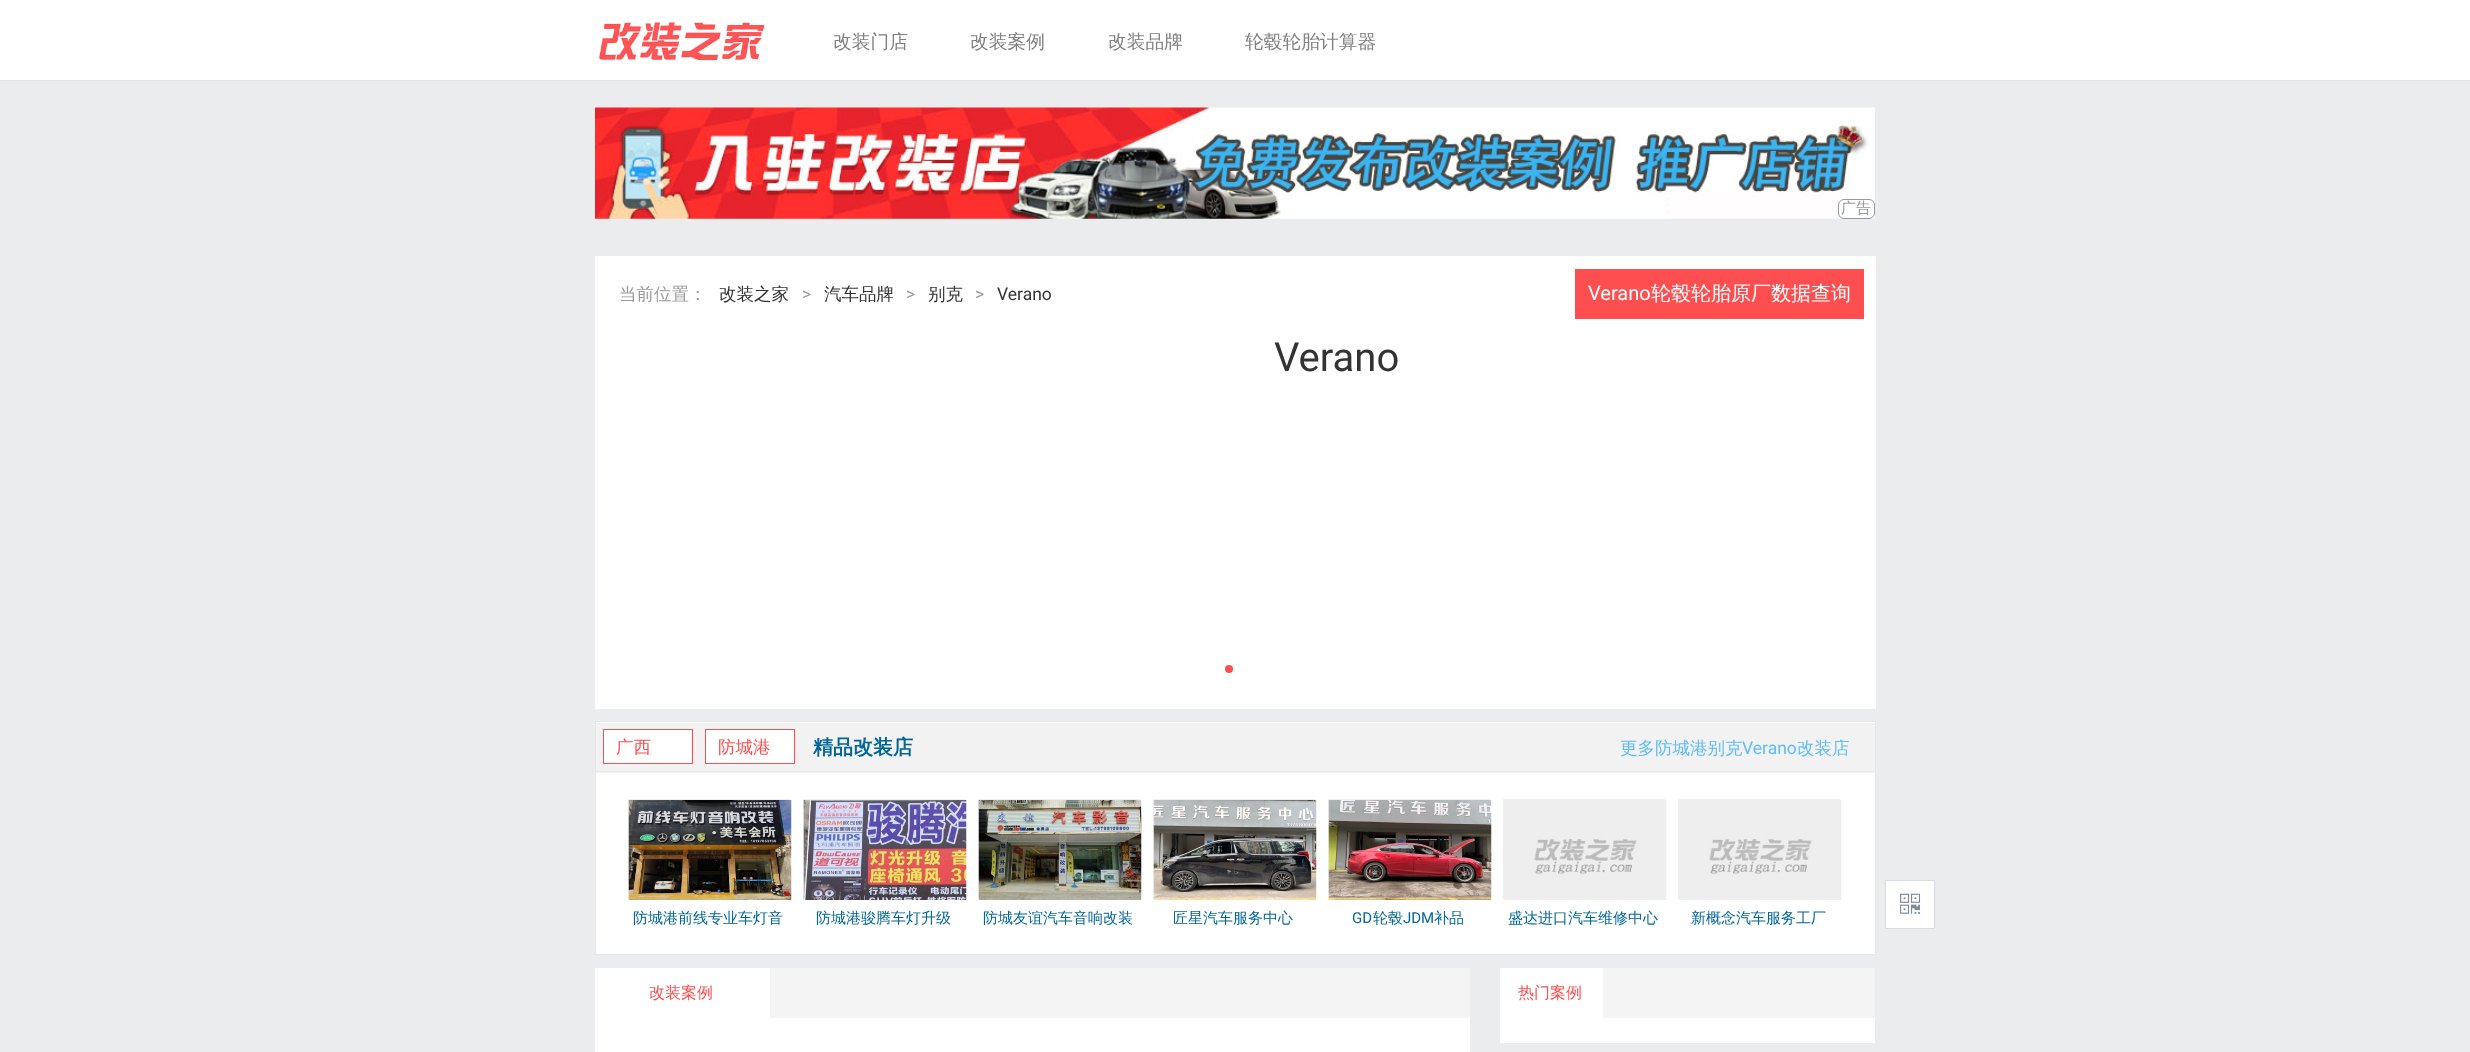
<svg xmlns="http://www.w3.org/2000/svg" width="2470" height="1052">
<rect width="100%" height="100%" fill="#eaeced"/>
<rect width="2470" height="80" fill="#fff"/>
<rect y="80" width="2470" height="1" fill="#e5e5e5"/>
<image x="599" y="22" width="166" height="39" href="media/1.png"/>
<text x="833" y="48" style="font-family:WenQuanYi Zen Hei;font-size:18.75px;font-weight:500;fill:#818181">改装门店</text>
<text x="970" y="48" style="font-family:WenQuanYi Zen Hei;font-size:18.75px;font-weight:500;fill:#818181">改装案例</text>
<text x="1108" y="48" style="font-family:WenQuanYi Zen Hei;font-size:18.75px;font-weight:500;fill:#818181">改装品牌</text>
<text x="1245" y="48" style="font-family:WenQuanYi Zen Hei;font-size:18.75px;font-weight:500;fill:#818181">轮毂轮胎计算器</text>
<image x="595" y="107" width="1280" height="112" href="media/2.png"/>
<rect x="1838.5" y="199.5" width="36" height="19" rx="5.5" fill="#fff" stroke="#999"/>
<text x="1841" y="213" style="font-family:WenQuanYi Zen Hei;font-size:15px;font-weight:500;fill:#999">广告</text>
<rect x="595" y="256" width="1281" height="453" fill="#fff"/>
<text x="619" y="300" style="font-family:WenQuanYi Zen Hei;font-size:17.5px;font-weight:500;fill:#999">当前位置：</text>
<text x="719" y="300" style="font-family:WenQuanYi Zen Hei;font-size:17.5px;font-weight:500;fill:#333">改装之家</text>
<text x="802" y="300" style="font-family:Roboto;font-size:17.5px;fill:#999">&gt;</text>
<text x="824" y="300" style="font-family:WenQuanYi Zen Hei;font-size:17.5px;font-weight:500;fill:#333">汽车品牌</text>
<text x="906" y="300" style="font-family:Roboto;font-size:17.5px;fill:#999">&gt;</text>
<text x="928" y="300" style="font-family:WenQuanYi Zen Hei;font-size:17.5px;font-weight:500;fill:#333">别克</text>
<text x="975" y="300" style="font-family:Roboto;font-size:17.5px;fill:#999">&gt;</text>
<text x="997" y="300" style="font-family:Roboto;font-size:17.5px;fill:#333">Verano</text>
<rect x="1575" y="269" width="289" height="50" fill="#fe4f50"/>
<text x="1588" y="300" style="font-family:Roboto;font-size:20px;fill:#fff">Verano</text>
<text x="1651" y="300" style="font-family:WenQuanYi Zen Hei;font-size:20px;font-weight:500;fill:#fff">轮毂轮胎原厂数据查询</text>
<text x="1274" y="371" style="font-family:Roboto;font-size:40px;fill:#333">Verano</text>
<circle cx="1229" cy="669" r="4" fill="#fe4f50"/>
<rect x="595.5" y="721.5" width="1280" height="233" fill="#fff" stroke="#e8e8e8"/>
<rect x="596" y="723" width="1279" height="50" fill="#f2f2f2"/>
<rect x="596" y="771" width="1279" height="1" fill="#e8e8e8"/>
<rect x="603.5" y="729.5" width="89" height="34" fill="none" stroke="#fe4f50"/>
<rect x="604" y="730" width="87" height="33" fill="#fff"/>
<text x="616" y="753" style="font-family:WenQuanYi Zen Hei;font-size:17.5px;font-weight:500;fill:#fe4f50">广西</text>
<rect x="705.5" y="729.5" width="89" height="34" fill="none" stroke="#fe4f50"/>
<rect x="706" y="730" width="88" height="33" fill="#fff"/>
<text x="718" y="753" style="font-family:WenQuanYi Zen Hei;font-size:17.5px;font-weight:500;fill:#fe4f50">防城港</text>
<text x="813" y="754" style="font-family:WenQuanYi Zen Hei;font-size:20px;font-weight:bold;fill:#069">精品改装店</text>
<text x="1620" y="754" style="font-family:WenQuanYi Zen Hei;font-size:17.5px;font-weight:500;fill:#5dbdfa">更多防城港别克</text>
<text x="1742" y="754" style="font-family:Roboto;font-size:17.5px;fill:#5dbdfa">Verano</text>
<text x="1797" y="754" style="font-family:WenQuanYi Zen Hei;font-size:17.5px;font-weight:500;fill:#5dbdfa">改装店</text>
<rect x="628.5" y="799.5" width="161" height="99" fill="none" stroke="#efefef"/>
<image x="628" y="800" width="164" height="100" href="media/3.png"/>
<text x="633" y="923" style="font-family:WenQuanYi Zen Hei;font-size:15px;font-weight:500;fill:#069">防城港前线专业车灯音</text>
<rect x="803.5" y="799.5" width="161" height="99" fill="none" stroke="#efefef"/>
<image x="803" y="800" width="164" height="100" href="media/4.png"/>
<text x="816" y="923" style="font-family:WenQuanYi Zen Hei;font-size:15px;font-weight:500;fill:#069">防城港骏腾车灯升级</text>
<rect x="978.5" y="799.5" width="161" height="99" fill="none" stroke="#efefef"/>
<image x="978" y="800" width="164" height="100" href="media/5.png"/>
<text x="983" y="923" style="font-family:WenQuanYi Zen Hei;font-size:15px;font-weight:500;fill:#069">防城友谊汽车音响改装</text>
<rect x="1153.5" y="799.5" width="161" height="99" fill="none" stroke="#efefef"/>
<image x="1153" y="800" width="164" height="100" href="media/6.png"/>
<text x="1173" y="923" style="font-family:WenQuanYi Zen Hei;font-size:15px;font-weight:500;fill:#069">匠星汽车服务中心</text>
<rect x="1328.5" y="799.5" width="161" height="99" fill="none" stroke="#efefef"/>
<image x="1328" y="800" width="164" height="100" href="media/7.png"/>
<text x="1352" y="923" style="font-family:Roboto;font-size:15px;fill:#069">GD</text>
<text x="1373" y="923" style="font-family:WenQuanYi Zen Hei;font-size:15px;font-weight:500;fill:#069">轮毂</text>
<text x="1403" y="923" style="font-family:Roboto;font-size:15px;fill:#069">JDM</text>
<text x="1434" y="923" style="font-family:WenQuanYi Zen Hei;font-size:15px;font-weight:500;fill:#069">补品</text>
<rect x="1503.5" y="799.5" width="161" height="99" fill="none" stroke="#efefef"/>
<image x="1503" y="800" width="164" height="100" href="media/8.png"/>
<text x="1508" y="923" style="font-family:WenQuanYi Zen Hei;font-size:15px;font-weight:500;fill:#069">盛达进口汽车维修中心</text>
<rect x="1678.5" y="799.5" width="161" height="99" fill="none" stroke="#efefef"/>
<image x="1678" y="800" width="164" height="100" href="media/8.png"/>
<text x="1691" y="923" style="font-family:WenQuanYi Zen Hei;font-size:15px;font-weight:500;fill:#069">新概念汽车服务工厂</text>
<rect x="595" y="1018" width="875" height="34" fill="#fff"/>
<rect x="770" y="968" width="700" height="50" fill="#f4f4f4"/>
<rect x="595" y="968" width="175" height="50" fill="#fff"/>
<text x="649" y="998" style="font-family:WenQuanYi Zen Hei;font-size:16px;font-weight:500;fill:#fe4f50">改装案例</text>
<rect x="1500" y="1018" width="375" height="25" fill="#fff"/>
<rect x="1603" y="968" width="272" height="50" fill="#f4f4f4"/>
<rect x="1500" y="968" width="103" height="50" fill="#fff"/>
<text x="1518" y="998" style="font-family:WenQuanYi Zen Hei;font-size:16px;font-weight:500;fill:#fe4f50">热门案例</text>
<rect x="1885.5" y="880.5" width="49" height="48" fill="#fff" stroke="#d7dde3"/>
<image x="1900" y="893" width="21" height="21" href="media/9.png"/>
</svg>
